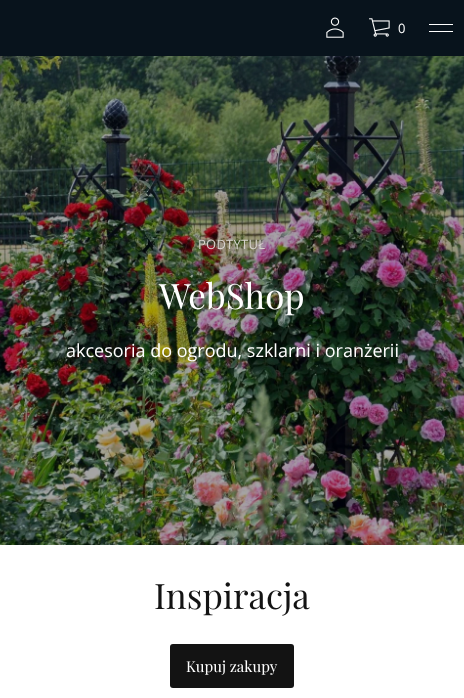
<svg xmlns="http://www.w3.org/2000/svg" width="464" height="698">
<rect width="100%" height="100%" fill="#fff"/>
<rect width="464" height="56" fill="#08131c"/>
<image x="326" y="17" width="18" height="21" href="media/1.png"/>
<image x="369" y="18" width="21" height="19" href="media/2.png"/>
<text x="398" y="33" style="font-family:Open Sans;font-size:13px;fill:#fff">0</text>
<path d="M429 24v1h24v-1zm0 8h24v-1h-24z" fill="#fff"/>
<image x="0" y="56" width="464" height="489" href="media/3.png"/>
<text x="198" y="249" style="font-family:Open Sans;font-size:13px;letter-spacing:0.25px;fill:#d6d2cd">PODTYTUŁ</text>
<text x="159" y="309" style="font-family:Playfair Display;font-size:35px;fill:#fff">WebShop</text>
<text x="66" y="357" style="font-family:Open Sans;font-size:18px;fill:#fff">akcesoria do ogrodu, szklarni i oranżerii</text>
<text x="154" y="609" style="font-family:Playfair Display;font-size:35px;fill:#131313">Inspiracja</text>
<rect x="170" y="644" width="124" height="44" rx="3" fill="#131313"/>
<text x="186" y="672" style="font-family:Playfair Display;font-size:15px;fill:#fff">Kupuj zakupy</text>
</svg>
